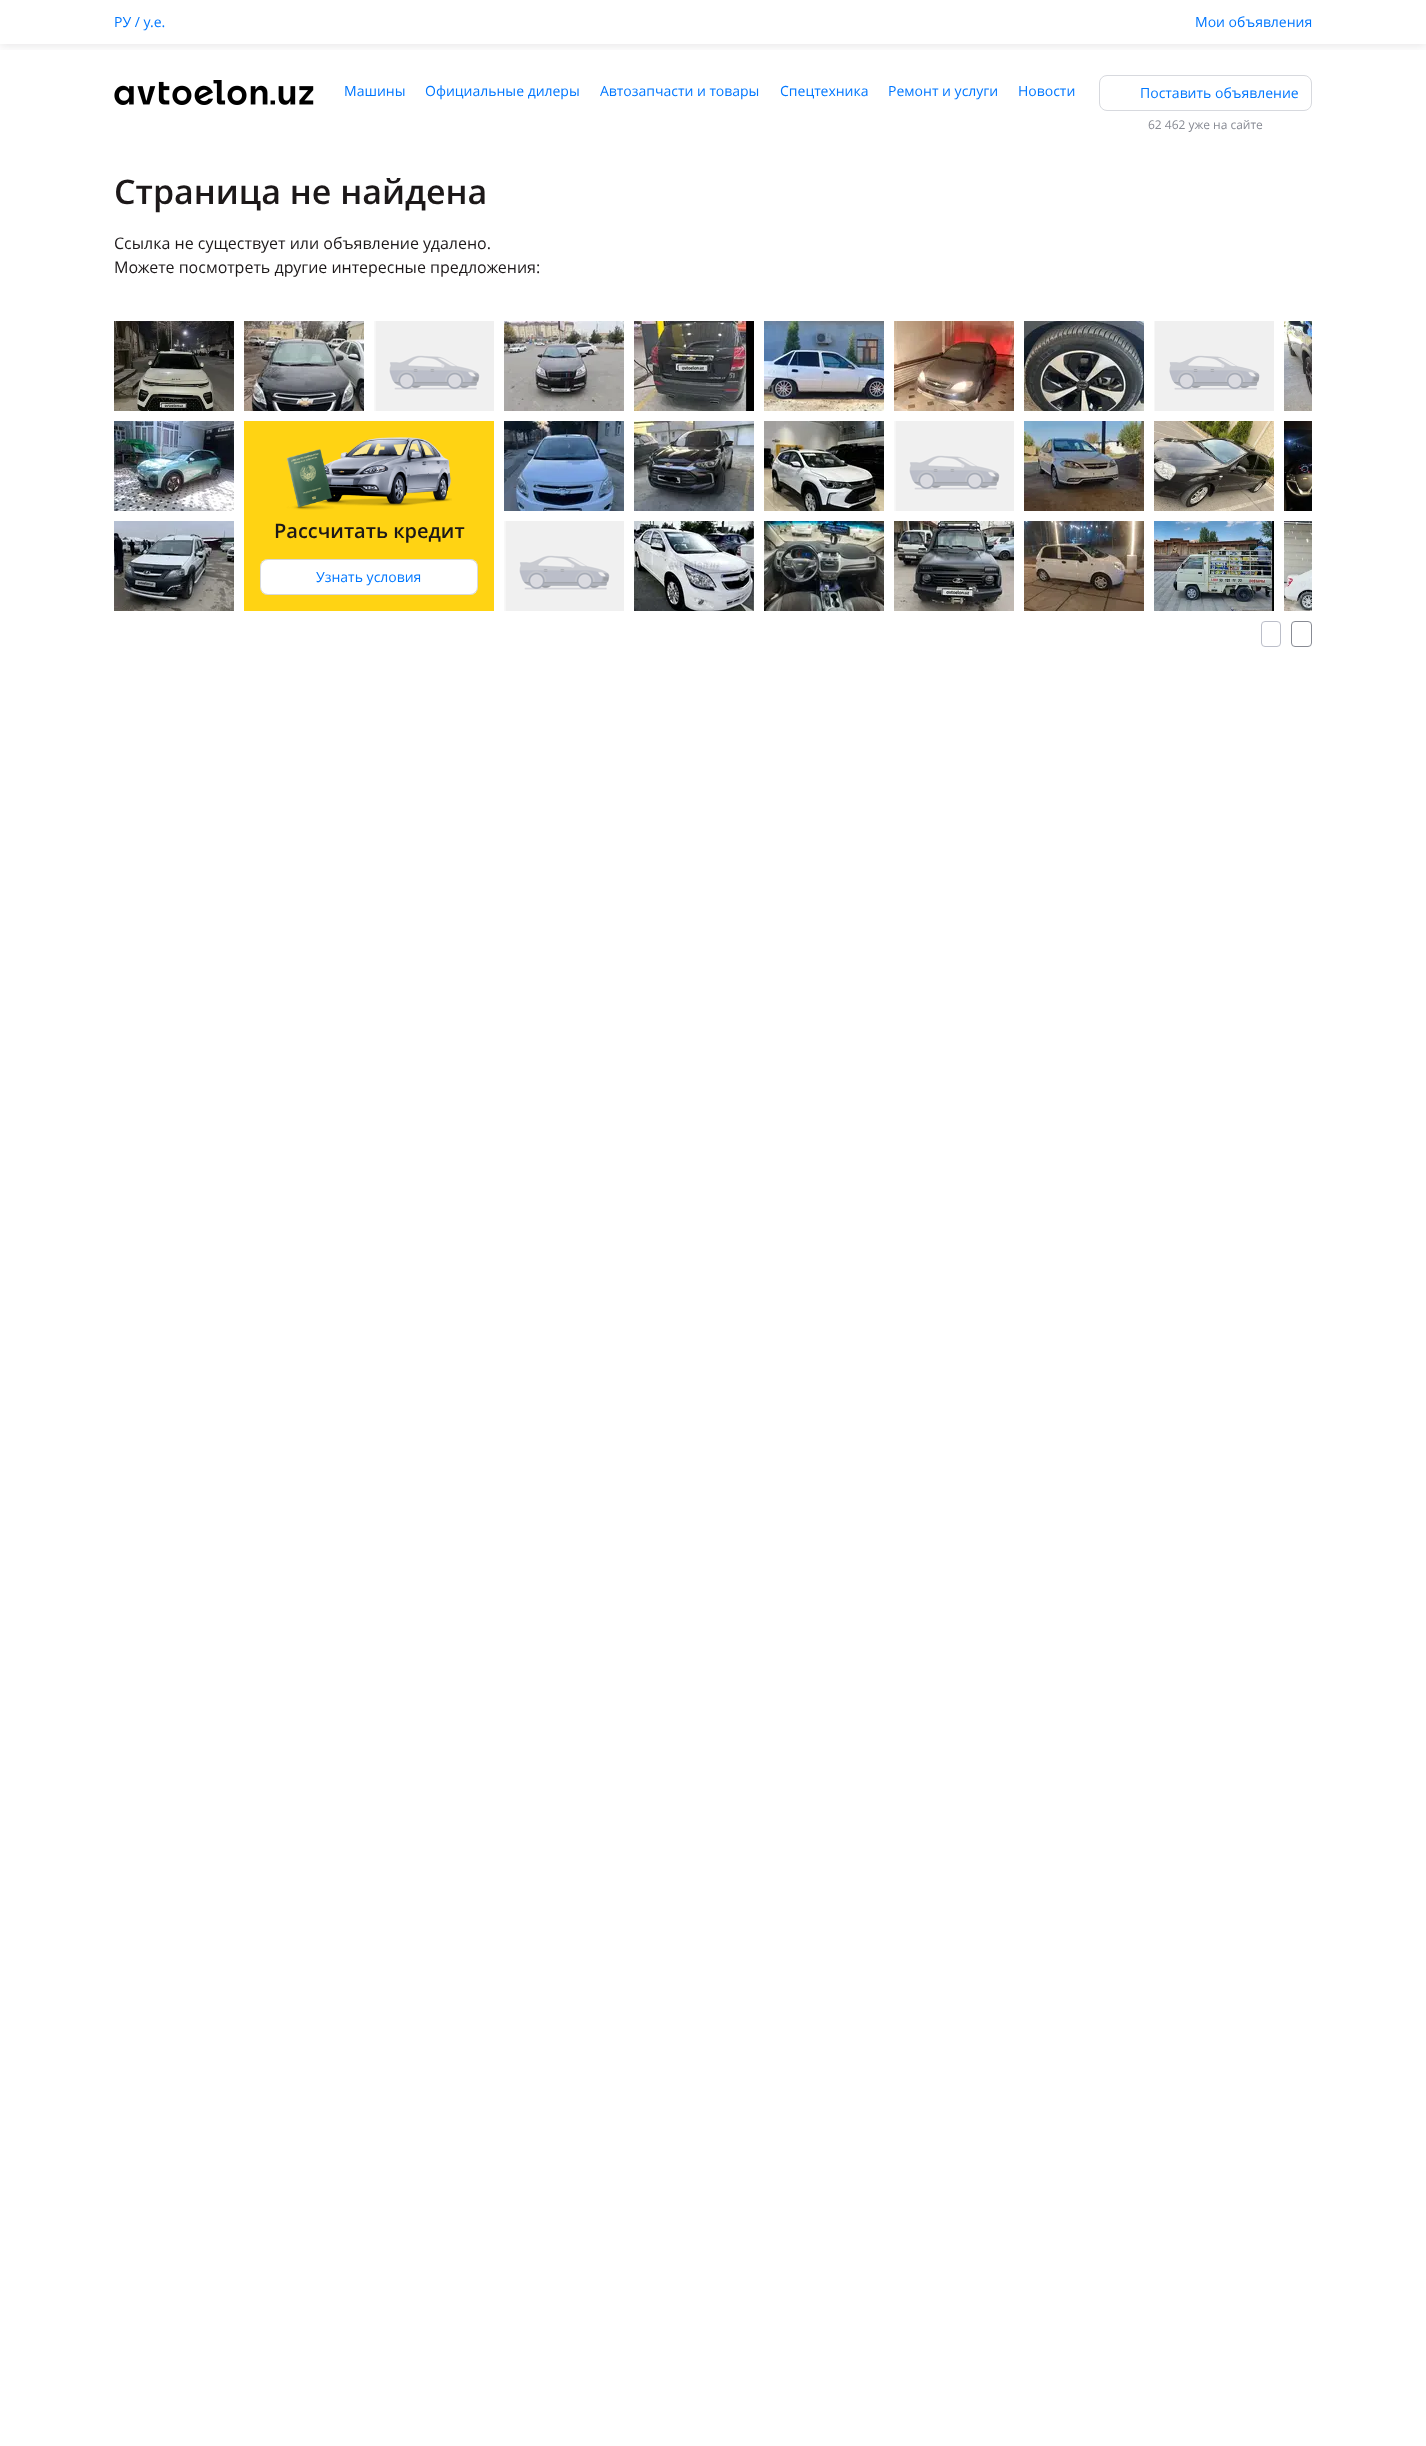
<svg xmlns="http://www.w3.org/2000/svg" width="1426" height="2446">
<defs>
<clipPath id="clip1"><rect x="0" y="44" width="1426" height="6"/></clipPath>
</defs>
<rect width="100%" height="100%" fill="#fff"/>
<g clip-path="url(#clip1)">
<rect y="2" width="1426" height="44" fill="#1c18191a" filter="blur(5px)"/>
</g>
<text x="114" y="27" style="font-family:Open Sans;font-size:14px;fill:#07f">РУ / у.е.</text>
<text x="1195" y="27" style="font-family:Open Sans;font-size:14px;fill:#07f">Мои объявления</text>
<image x="114" y="80" width="200" height="25" href="media/1.png"/>
<text x="344" y="96" style="font-family:Open Sans;font-size:14px;fill:#07f">Машины</text>
<text x="425" y="96" style="font-family:Open Sans;font-size:14px;fill:#07f">Официальные дилеры</text>
<text x="600" y="96" style="font-family:Open Sans;font-size:14px;fill:#07f">Автозапчасти и товары</text>
<text x="780" y="96" style="font-family:Open Sans;font-size:14px;fill:#07f">Спецтехника</text>
<text x="888" y="96" style="font-family:Open Sans;font-size:14px;fill:#07f">Ремонт и услуги</text>
<text x="1018" y="96" style="font-family:Open Sans;font-size:14px;fill:#07f">Новости</text>
<rect x="1099.5" y="75.5" width="212" height="35" rx="7.5" fill="none" stroke="#d7d9de"/>
<text x="1140" y="98" style="font-family:Open Sans;font-size:14px;fill:#07f">Поставить объявление</text>
<text x="1148" y="129" style="font-family:Open Sans;font-size:12px;fill:#888b94">62 462 уже на сайте</text>
<text x="114" y="204" style="font-family:Open Sans;font-size:34px;font-weight:600;fill:#1c1819">Страница не найдена</text>
<text x="114" y="249" style="font-family:Open Sans;font-size:16px;fill:#1c1819">Cсылка не существует или объявление удалено.</text>
<text x="114" y="273" style="font-family:Open Sans;font-size:16px;fill:#1c1819">Можете посмотреть другие интересные предложения:</text>
<image x="114" y="321" width="120" height="90" href="media/2.png"/>
<image x="244" y="321" width="120" height="90" href="media/3.png"/>
<image x="374" y="321" width="120" height="90" href="media/4.png"/>
<image x="504" y="321" width="120" height="90" href="media/5.png"/>
<image x="634" y="321" width="120" height="90" href="media/6.png"/>
<image x="764" y="321" width="120" height="90" href="media/7.png"/>
<image x="894" y="321" width="120" height="90" href="media/8.png"/>
<image x="1024" y="321" width="120" height="90" href="media/9.png"/>
<image x="1154" y="321" width="120" height="90" href="media/10.png"/>
<image x="1284" y="321" width="28" height="90" href="media/11.png"/>
<image x="114" y="421" width="120" height="90" href="media/12.png"/>
<image x="504" y="421" width="120" height="90" href="media/13.png"/>
<image x="634" y="421" width="120" height="90" href="media/14.png"/>
<image x="764" y="421" width="120" height="90" href="media/15.png"/>
<image x="894" y="421" width="120" height="90" href="media/4.png"/>
<image x="1024" y="421" width="120" height="90" href="media/16.png"/>
<image x="1154" y="421" width="120" height="90" href="media/17.png"/>
<image x="1284" y="421" width="28" height="90" href="media/18.png"/>
<image x="114" y="521" width="120" height="90" href="media/19.png"/>
<rect x="244" y="421" width="250" height="190" fill="#ffd313"/>
<image x="286" y="437" width="166" height="73" href="media/20.png"/>
<text x="274" y="538" style="font-family:Open Sans;font-size:20px;font-weight:600;fill:#1c1819">Рассчитать кредит</text>
<rect x="260" y="559" width="218" height="36" rx="8" fill="#fff"/>
<rect x="260.5" y="559.5" width="217" height="35" rx="7.5" fill="none" stroke="#505b713b"/>
<text x="316" y="582" style="font-family:Open Sans;font-size:14px;fill:#07f">Узнать условия</text>
<image x="504" y="521" width="120" height="90" href="media/4.png"/>
<image x="634" y="521" width="120" height="90" href="media/21.png"/>
<image x="764" y="521" width="120" height="90" href="media/22.png"/>
<image x="894" y="521" width="120" height="90" href="media/23.png"/>
<image x="1024" y="521" width="120" height="90" href="media/24.png"/>
<image x="1154" y="521" width="120" height="90" href="media/25.png"/>
<image x="1284" y="521" width="28" height="90" href="media/26.png"/>
<rect x="1261.5" y="621.5" width="19" height="25" rx="3.5" fill="none" stroke="#bbbec9"/>
<rect x="1291.5" y="621.5" width="20" height="25" rx="3.5" fill="none" stroke="#888b94"/>
</svg>
